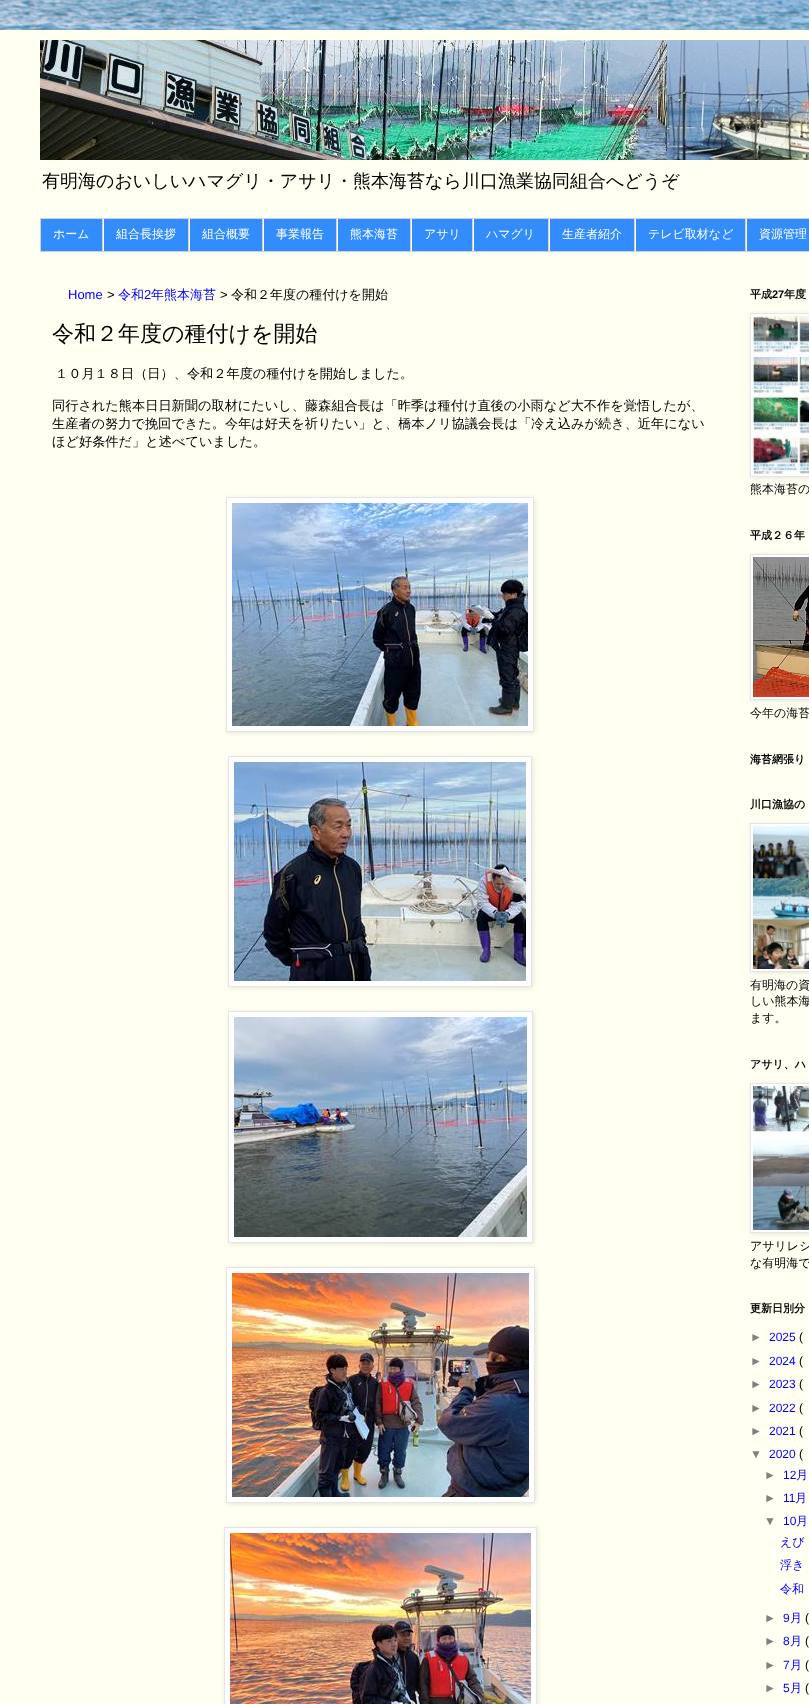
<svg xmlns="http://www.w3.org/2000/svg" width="809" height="1704">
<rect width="100%" height="100%" fill="#fff"/>
<image x="0" y="0" width="809" height="30" href="media/1.png"/>
<rect y="30" width="809" height="1674" fill="#fffff2"/>
<image x="40" y="40" width="769" height="120" href="media/2.png"/>
<text x="42" y="187" style="font-family:WenQuanYi Zen Hei;font-size:18px;font-weight:500;fill:#000">有明海のおいしいハマグリ・アサリ・熊本海苔なら川口漁業協同組合へどうぞ</text>
<rect x="40.5" y="218.5" width="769" height="33" fill="#328cfc" stroke="#d2d2d2"/>
<rect x="102" y="219" width="1" height="32" fill="#d2d2d2"/>
<text x="53" y="238" style="font-family:WenQuanYi Zen Hei;font-size:12px;font-weight:500;fill:#fff">ホーム</text>
<rect x="188" y="219" width="1" height="32" fill="#d2d2d2"/>
<rect x="103" y="219" width="1" height="32" fill="#fffff2"/>
<text x="116" y="238" style="font-family:WenQuanYi Zen Hei;font-size:12px;font-weight:500;fill:#fff">組合長挨拶</text>
<rect x="262" y="219" width="1" height="32" fill="#d2d2d2"/>
<rect x="189" y="219" width="1" height="32" fill="#fffff2"/>
<text x="202" y="238" style="font-family:WenQuanYi Zen Hei;font-size:12px;font-weight:500;fill:#fff">組合概要</text>
<rect x="336" y="219" width="1" height="32" fill="#d2d2d2"/>
<rect x="263" y="219" width="1" height="32" fill="#fffff2"/>
<text x="276" y="238" style="font-family:WenQuanYi Zen Hei;font-size:12px;font-weight:500;fill:#fff">事業報告</text>
<rect x="410" y="219" width="1" height="32" fill="#d2d2d2"/>
<rect x="337" y="219" width="1" height="32" fill="#fffff2"/>
<text x="350" y="238" style="font-family:WenQuanYi Zen Hei;font-size:12px;font-weight:500;fill:#fff">熊本海苔</text>
<rect x="472" y="219" width="1" height="32" fill="#d2d2d2"/>
<rect x="411" y="219" width="1" height="32" fill="#fffff2"/>
<text x="424" y="238" style="font-family:WenQuanYi Zen Hei;font-size:12px;font-weight:500;fill:#fff">アサリ</text>
<rect x="548" y="219" width="1" height="32" fill="#d2d2d2"/>
<rect x="473" y="219" width="1" height="32" fill="#fffff2"/>
<text x="486" y="238" style="font-family:WenQuanYi Zen Hei;font-size:12px;font-weight:500;fill:#fff">ハマグリ</text>
<rect x="634" y="219" width="1" height="32" fill="#d2d2d2"/>
<rect x="549" y="219" width="1" height="32" fill="#fffff2"/>
<text x="562" y="238" style="font-family:WenQuanYi Zen Hei;font-size:12px;font-weight:500;fill:#fff">生産者紹介</text>
<rect x="745" y="219" width="1" height="32" fill="#d2d2d2"/>
<rect x="635" y="219" width="1" height="32" fill="#fffff2"/>
<text x="648" y="238" style="font-family:WenQuanYi Zen Hei;font-size:12px;font-weight:500;fill:#fff">テレビ取材など</text>
<rect x="746" y="219" width="1" height="32" fill="#fffff2"/>
<text x="759" y="238" style="font-family:WenQuanYi Zen Hei;font-size:12px;font-weight:500;fill:#fff">資源管理</text>
<text x="68" y="299" style="font-family:Liberation Sans;font-size:13px;fill:#00f">Home</text>
<text x="107" y="299" style="font-family:Liberation Sans;font-size:13px;fill:#000">&gt;</text>
<text x="118" y="299" style="font-family:WenQuanYi Zen Hei;font-size:13px;font-weight:500;fill:#00f">令和</text>
<text x="144" y="299" style="font-family:Liberation Sans;font-size:13px;fill:#00f">2</text>
<text x="151" y="299" style="font-family:WenQuanYi Zen Hei;font-size:13px;font-weight:500;fill:#00f">年熊本海苔</text>
<text x="220" y="299" style="font-family:Liberation Sans;font-size:13px;fill:#000">&gt;</text>
<text x="231" y="299" style="font-family:WenQuanYi Zen Hei;font-size:13px;font-weight:500;fill:#000">令和２年度の種付けを開始</text>
<text x="52" y="341" style="font-family:WenQuanYi Zen Hei;font-size:22px;font-weight:500;fill:#000">令和２年度の種付けを開始</text>
<text x="55" y="378" style="font-family:WenQuanYi Zen Hei;font-size:13.2px;font-weight:500;fill:#000">１０月１８日（日）、令和２年度の種付けを開始しました。</text>
<text x="52" y="410" style="font-family:WenQuanYi Zen Hei;font-size:13.2px;font-weight:500;fill:#000">同行された熊本日日新聞の取材にたいし、藤森組合長は「昨季は種付け直後の小雨など大不作を覚悟したが、</text>
<text x="52" y="428" style="font-family:WenQuanYi Zen Hei;font-size:13.2px;font-weight:500;fill:#000">生産者の努力で挽回できた。今年は好天を祈りたい」と、橋本ノリ協議会長は「冷え込みが続き、近年にない</text>
<text x="52" y="446" style="font-family:WenQuanYi Zen Hei;font-size:13.2px;font-weight:500;fill:#000">ほど好条件だ」と述べていました。</text>
<rect x="227" y="498" width="308" height="235" fill="#0000001a" filter="blur(2.5px)"/>
<rect x="226.5" y="497.5" width="307" height="234" fill="#fff" stroke="#e5e5e5"/>
<image x="232" y="503" width="296" height="223" href="media/3.png"/>
<rect x="229" y="757" width="304" height="231" fill="#0000001a" filter="blur(2.5px)"/>
<rect x="228.5" y="756.5" width="303" height="230" fill="#fff" stroke="#e5e5e5"/>
<image x="234" y="762" width="292" height="219" href="media/4.png"/>
<rect x="229" y="1012" width="305" height="232" fill="#0000001a" filter="blur(2.5px)"/>
<rect x="228.5" y="1011.5" width="304" height="231" fill="#fff" stroke="#e5e5e5"/>
<image x="234" y="1017" width="293" height="220" href="media/5.png"/>
<rect x="227" y="1268" width="309" height="236" fill="#0000001a" filter="blur(2.5px)"/>
<rect x="226.5" y="1267.5" width="308" height="235" fill="#fff" stroke="#e5e5e5"/>
<image x="232" y="1273" width="297" height="224" href="media/6.png"/>
<rect x="225" y="1528" width="313" height="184" fill="#0000001a" filter="blur(2.5px)"/>
<rect x="224.5" y="1527.5" width="312" height="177" fill="#fff" stroke="#e5e5e5"/>
<image x="230" y="1533" width="301" height="171" href="media/7.png"/>
<text x="750" y="298" style="font-family:WenQuanYi Zen Hei;font-size:11px;font-weight:bold;fill:#000">平成</text>
<text x="772" y="298" style="font-family:Liberation Sans;font-size:11px;font-weight:bold;fill:#000">27</text>
<text x="784" y="298" style="font-family:WenQuanYi Zen Hei;font-size:11px;font-weight:bold;fill:#000">年度</text>
<rect x="751" y="314" width="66" height="164" fill="#0000001a" filter="blur(2.5px)"/>
<rect x="750.5" y="313.5" width="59" height="163" fill="#fff" stroke="#e5e5e5"/>
<image x="753" y="316" width="56" height="158" href="media/8.png"/>
<text x="750" y="493" style="font-family:WenQuanYi Zen Hei;font-size:12px;font-weight:500;fill:#000">熊本海苔の</text>
<text x="750" y="539" style="font-family:WenQuanYi Zen Hei;font-size:11px;font-weight:bold;fill:#000">平成２６年</text>
<rect x="751" y="555" width="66" height="146" fill="#0000001a" filter="blur(2.5px)"/>
<rect x="750.5" y="554.5" width="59" height="145" fill="#fff" stroke="#e5e5e5"/>
<image x="753" y="557" width="56" height="140" href="media/9.png"/>
<text x="750" y="717" style="font-family:WenQuanYi Zen Hei;font-size:12px;font-weight:500;fill:#000">今年の海苔</text>
<text x="750" y="763" style="font-family:WenQuanYi Zen Hei;font-size:11px;font-weight:bold;fill:#000">海苔網張り</text>
<text x="750" y="808" style="font-family:WenQuanYi Zen Hei;font-size:11px;font-weight:bold;fill:#000">川口漁協の</text>
<rect x="751" y="824" width="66" height="149" fill="#0000001a" filter="blur(2.5px)"/>
<rect x="750.5" y="823.5" width="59" height="148" fill="#fff" stroke="#e5e5e5"/>
<image x="753" y="826" width="56" height="143" href="media/10.png"/>
<text x="750" y="989" style="font-family:WenQuanYi Zen Hei;font-size:12px;font-weight:500;fill:#000">有明海の資</text>
<text x="750" y="1005" style="font-family:WenQuanYi Zen Hei;font-size:12px;font-weight:500;fill:#000">しい熊本海</text>
<text x="750" y="1022" style="font-family:WenQuanYi Zen Hei;font-size:12px;font-weight:500;fill:#000">ます。</text>
<text x="750" y="1068" style="font-family:WenQuanYi Zen Hei;font-size:11px;font-weight:bold;fill:#000">アサリ、ハ</text>
<rect x="751" y="1084" width="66" height="150" fill="#0000001a" filter="blur(2.5px)"/>
<rect x="750.5" y="1083.5" width="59" height="149" fill="#fff" stroke="#e5e5e5"/>
<image x="753" y="1086" width="56" height="144" href="media/11.png"/>
<text x="750" y="1250" style="font-family:WenQuanYi Zen Hei;font-size:12px;font-weight:500;fill:#000">アサリレシ</text>
<text x="750" y="1267" style="font-family:WenQuanYi Zen Hei;font-size:12px;font-weight:500;fill:#000">な有明海で</text>
<text x="750" y="1312" style="font-family:WenQuanYi Zen Hei;font-size:11px;font-weight:bold;fill:#000">更新日別分</text>
<text x="750" y="1341" style="font-family:Liberation Sans;font-size:12px;fill:#808080">►</text>
<text x="769" y="1341" style="font-family:Liberation Sans;font-size:12px;fill:#00f">2025</text>
<text x="799" y="1341" style="font-family:Liberation Sans;font-size:12px;fill:#000">(</text>
<text x="750" y="1365" style="font-family:Liberation Sans;font-size:12px;fill:#808080">►</text>
<text x="769" y="1365" style="font-family:Liberation Sans;font-size:12px;fill:#00f">2024</text>
<text x="799" y="1365" style="font-family:Liberation Sans;font-size:12px;fill:#000">(</text>
<text x="750" y="1388" style="font-family:Liberation Sans;font-size:12px;fill:#808080">►</text>
<text x="769" y="1388" style="font-family:Liberation Sans;font-size:12px;fill:#00f">2023</text>
<text x="799" y="1388" style="font-family:Liberation Sans;font-size:12px;fill:#000">(</text>
<text x="750" y="1412" style="font-family:Liberation Sans;font-size:12px;fill:#808080">►</text>
<text x="769" y="1412" style="font-family:Liberation Sans;font-size:12px;fill:#00f">2022</text>
<text x="799" y="1412" style="font-family:Liberation Sans;font-size:12px;fill:#000">(</text>
<text x="750" y="1435" style="font-family:Liberation Sans;font-size:12px;fill:#808080">►</text>
<text x="769" y="1435" style="font-family:Liberation Sans;font-size:12px;fill:#00f">2021</text>
<text x="799" y="1435" style="font-family:Liberation Sans;font-size:12px;fill:#000">(</text>
<text x="750" y="1458" style="font-family:Liberation Sans;font-size:12px;fill:#808080">▼</text>
<text x="769" y="1458" style="font-family:Liberation Sans;font-size:12px;fill:#00f">2020</text>
<text x="799" y="1458" style="font-family:Liberation Sans;font-size:12px;fill:#000">(</text>
<text x="764" y="1479" style="font-family:Liberation Sans;font-size:12px;fill:#808080">►</text>
<text x="783" y="1479" style="font-family:Liberation Sans;font-size:12px;fill:#00f">12</text>
<text x="796" y="1479" style="font-family:WenQuanYi Zen Hei;font-size:12px;font-weight:500;fill:#00f">月</text>
<text x="764" y="1502" style="font-family:Liberation Sans;font-size:12px;fill:#808080">►</text>
<text x="783" y="1502" style="font-family:Liberation Sans;font-size:12px;fill:#00f">11</text>
<text x="795" y="1502" style="font-family:WenQuanYi Zen Hei;font-size:12px;font-weight:500;fill:#00f">月</text>
<text x="764" y="1525" style="font-family:Liberation Sans;font-size:12px;fill:#808080">▼</text>
<text x="783" y="1525" style="font-family:Liberation Sans;font-size:12px;fill:#00f">10</text>
<text x="796" y="1525" style="font-family:WenQuanYi Zen Hei;font-size:12px;font-weight:500;fill:#00f">月</text>
<text x="780" y="1546" style="font-family:WenQuanYi Zen Hei;font-size:12px;font-weight:500;fill:#00f">えび</text>
<text x="780" y="1569" style="font-family:WenQuanYi Zen Hei;font-size:12px;font-weight:500;fill:#00f">浮き</text>
<text x="780" y="1593" style="font-family:WenQuanYi Zen Hei;font-size:12px;font-weight:500;fill:#00f">令和</text>
<text x="764" y="1622" style="font-family:Liberation Sans;font-size:12px;fill:#808080">►</text>
<text x="783" y="1622" style="font-family:Liberation Sans;font-size:12px;fill:#00f">9</text>
<text x="790" y="1622" style="font-family:WenQuanYi Zen Hei;font-size:12px;font-weight:500;fill:#00f">月</text>
<text x="805" y="1622" style="font-family:Liberation Sans;font-size:12px;fill:#000">(</text>
<text x="764" y="1645" style="font-family:Liberation Sans;font-size:12px;fill:#808080">►</text>
<text x="783" y="1645" style="font-family:Liberation Sans;font-size:12px;fill:#00f">8</text>
<text x="790" y="1645" style="font-family:WenQuanYi Zen Hei;font-size:12px;font-weight:500;fill:#00f">月</text>
<text x="805" y="1645" style="font-family:Liberation Sans;font-size:12px;fill:#000">(</text>
<text x="764" y="1669" style="font-family:Liberation Sans;font-size:12px;fill:#808080">►</text>
<text x="783" y="1669" style="font-family:Liberation Sans;font-size:12px;fill:#00f">7</text>
<text x="790" y="1669" style="font-family:WenQuanYi Zen Hei;font-size:12px;font-weight:500;fill:#00f">月</text>
<text x="805" y="1669" style="font-family:Liberation Sans;font-size:12px;fill:#000">(</text>
<text x="764" y="1692" style="font-family:Liberation Sans;font-size:12px;fill:#808080">►</text>
<text x="783" y="1692" style="font-family:Liberation Sans;font-size:12px;fill:#00f">5</text>
<text x="790" y="1692" style="font-family:WenQuanYi Zen Hei;font-size:12px;font-weight:500;fill:#00f">月</text>
<text x="805" y="1692" style="font-family:Liberation Sans;font-size:12px;fill:#000">(</text>
</svg>
